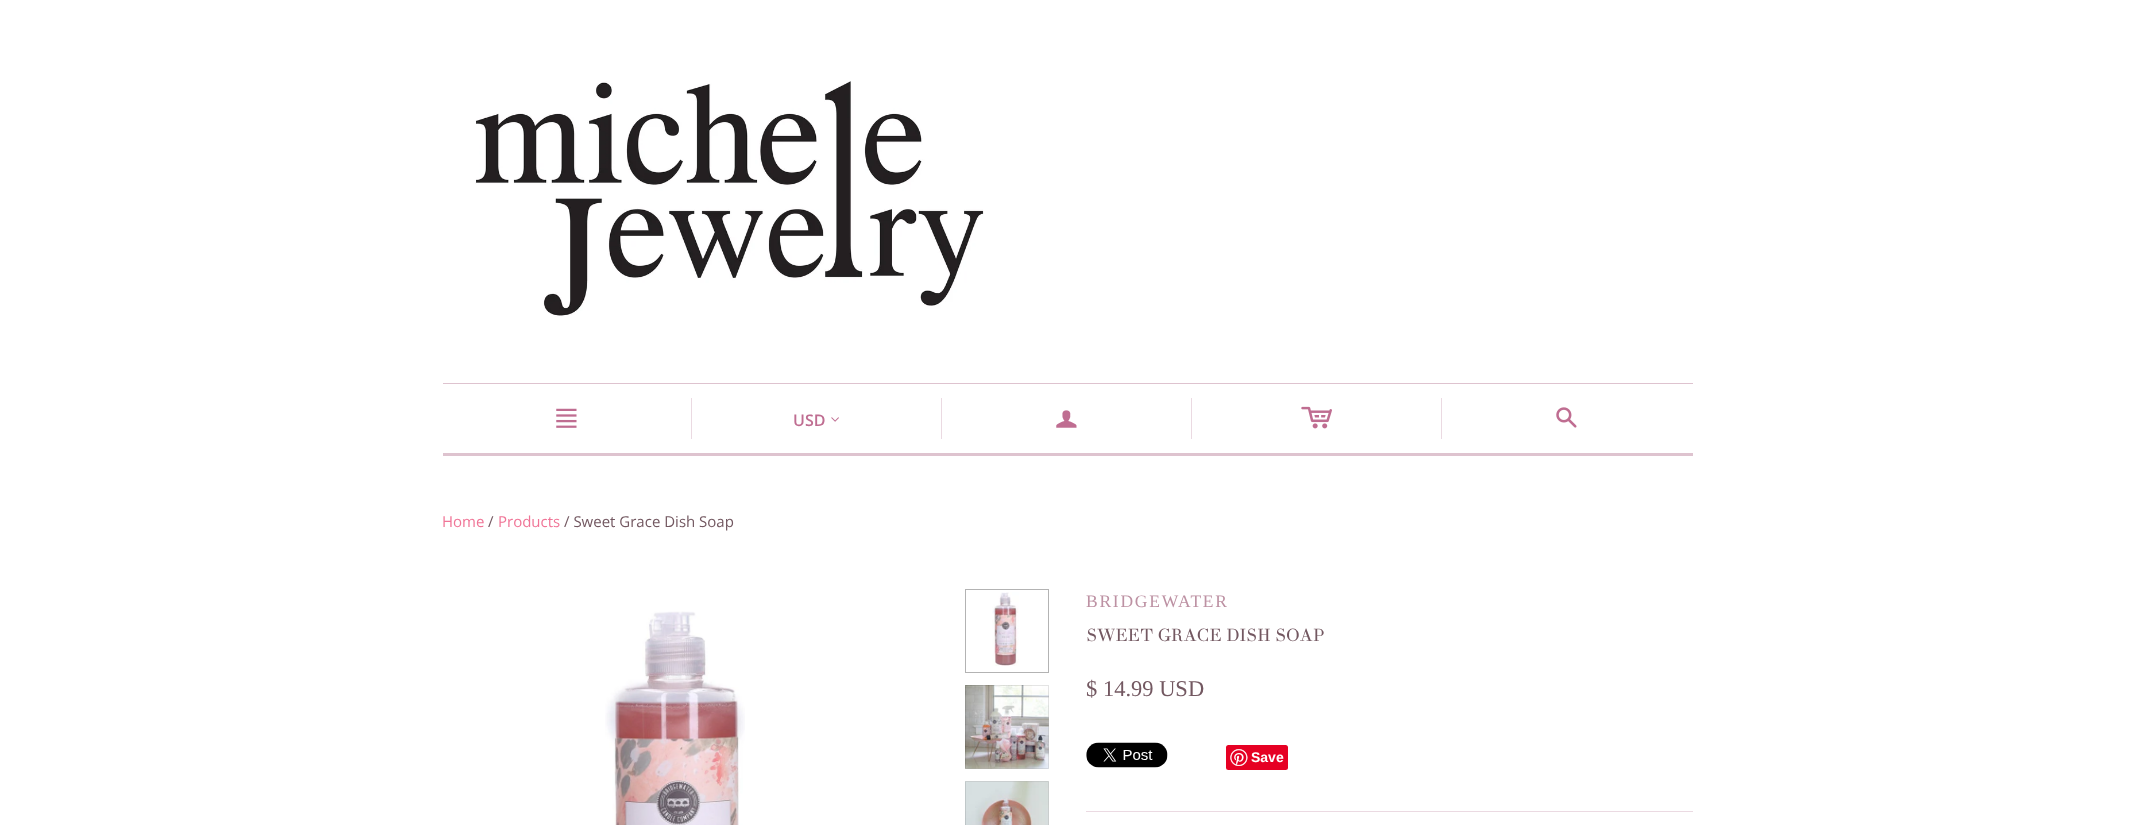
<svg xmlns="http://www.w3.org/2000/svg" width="2133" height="825">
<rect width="100%" height="100%" fill="#fff"/>
<image x="475" y="81" width="509" height="236" href="media/1.png"/>
<rect x="443" y="383" width="1250" height="1" fill="#dec3cf"/>
<rect x="443" y="453" width="1250" height="3" fill="#dec3cf"/>
<image x="556" y="408" width="21" height="20" href="media/2.png"/>
<rect x="691" y="398" width="1" height="41" fill="#ebdae2"/>
<text x="793" y="426" style="font-family:Open Sans;font-size:16px;font-weight:600;fill:#bf6d91">USD</text>
<image x="831" y="417" width="8" height="5" href="media/3.png"/>
<rect x="941" y="398" width="1" height="41" fill="#ebdae2"/>
<image x="1056" y="410" width="21" height="18" href="media/4.png"/>
<rect x="1191" y="398" width="1" height="41" fill="#ebdae2"/>
<image x="1301" y="406" width="31" height="23" href="media/5.png"/>
<rect x="1441" y="398" width="1" height="41" fill="#ebdae2"/>
<image x="1556" y="407" width="21" height="21" href="media/6.png"/>
<text x="442" y="527" style="font-family:Open Sans;font-size:15px;fill:#f07597">Home</text>
<text x="488" y="527" style="font-family:Open Sans;font-size:15px;fill:#735861">/</text>
<text x="498" y="527" style="font-family:Open Sans;font-size:15px;fill:#f07597">Products</text>
<text x="564" y="527" style="font-family:Open Sans;font-size:15px;fill:#735861">/ Sweet Grace Dish Soap</text>
<image x="605" y="611" width="140" height="214" href="media/7.png"/>
<image x="992" y="592" width="27" height="74" href="media/8.png"/>
<rect x="965.5" y="589.5" width="83" height="83" fill="none" stroke="#b3b3b3"/>
<image x="965" y="685" width="84" height="84" href="media/9.png"/>
<rect x="965.5" y="685.5" width="83" height="83" fill="none" stroke="#0000001a"/>
<image x="965" y="781" width="84" height="44" href="media/10.png"/>
<rect x="965.5" y="781.5" width="83" height="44" fill="none" stroke="#0000001a"/>
<text x="1086" y="607" style="font-family:Liberation Serif;font-size:17.5px;letter-spacing:1.75px;fill:#bd91a3">BRIDGEWATER</text>
<text x="1086" y="641" style="font-family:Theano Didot;font-size:17.5px;fill:#735861">SWEET GRACE DISH SOAP</text>
<text x="1086" y="696" style="font-family:Liberation Serif;font-size:22.5px;fill:#735861">$ 14.99 USD</text>
<image x="1086" y="742" width="82" height="26" href="media/11.png"/>
<rect x="1226" y="745" width="62" height="25" rx="2.5" fill="#e60023"/>
<image x="1230" y="749" width="18" height="17" href="media/12.png"/>
<text x="1251" y="762" style="font-family:Liberation Sans;font-size:14px;font-weight:bold;fill:#fff">Save</text>
<rect x="1086" y="811" width="607" height="1" fill="#ebdae2"/>
</svg>
